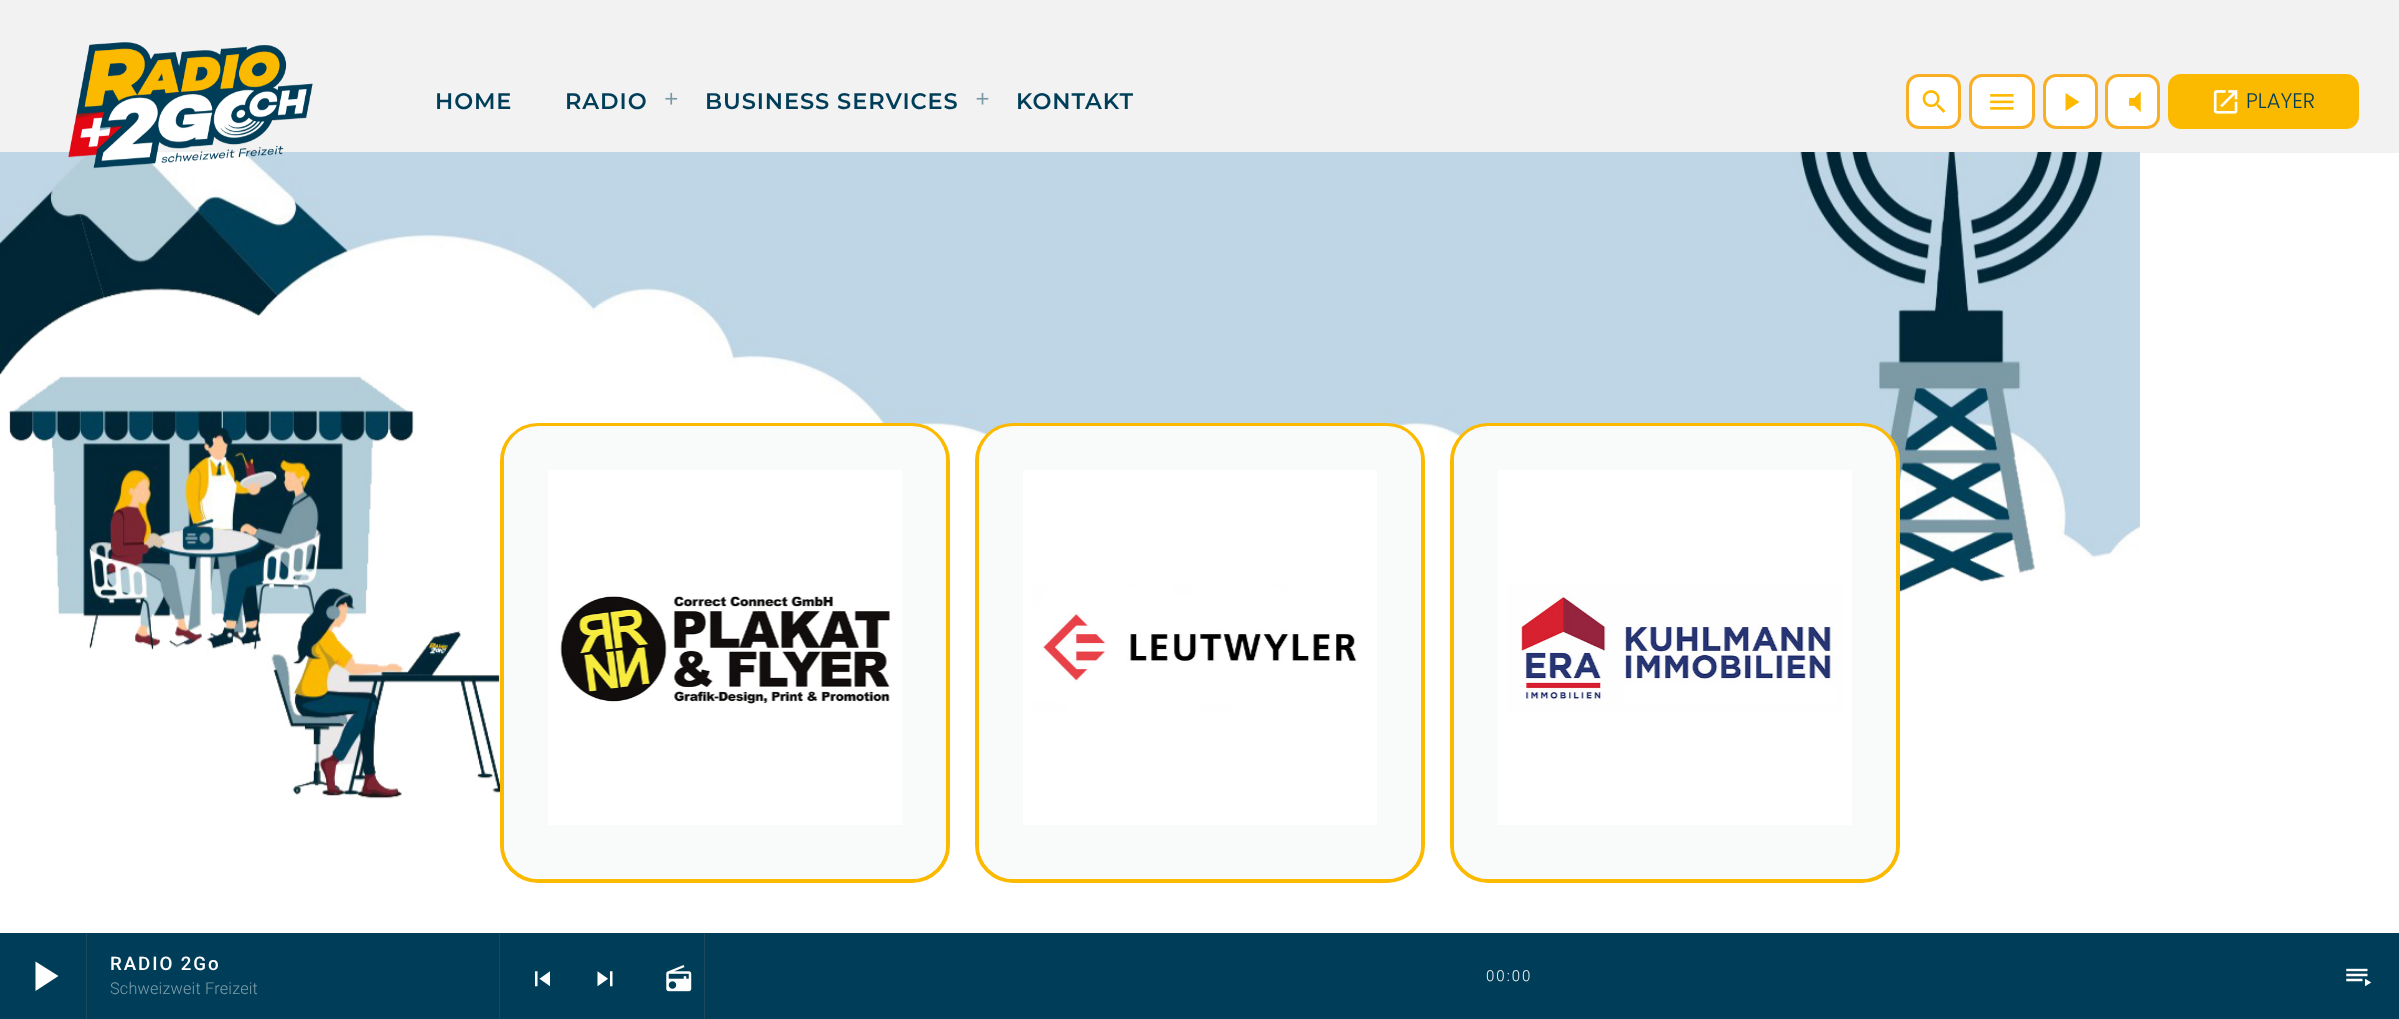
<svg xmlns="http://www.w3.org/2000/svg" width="2399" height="1019">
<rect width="100%" height="100%" fill="#f2f2f2"/>
<rect y="153" width="2399" height="780" fill="#fff"/>
<image x="0" y="152" width="2140" height="647" href="media/8.png"/>
<image x="68" y="42" width="245" height="127" href="media/1.png"/>
<text x="435" y="109" style="font-family:Montserrat;font-size:22.5px;font-weight:600;letter-spacing:0.9px;fill:#003d58">HOME</text>
<text x="565" y="109" style="font-family:Montserrat;font-size:22.5px;font-weight:600;letter-spacing:0.9px;fill:#003d58">RADIO</text>
<image x="665" y="92" width="13" height="13" href="media/2.png"/>
<text x="705" y="109" style="font-family:Montserrat;font-size:22.5px;font-weight:600;letter-spacing:0.9px;fill:#003d58">BUSINESS SERVICES</text>
<image x="976" y="92" width="13" height="13" href="media/3.png"/>
<text x="1016" y="109" style="font-family:Montserrat;font-size:22.5px;font-weight:600;letter-spacing:0.9px;fill:#003d58">KONTAKT</text>
<rect x="1907.5" y="75.5" width="52" height="52" rx="11.5" fill="#fff" stroke="#f8af23" stroke-width="3"/>
<image x="1922" y="90" width="24" height="23" href="media/4.png"/>
<rect x="1970.5" y="75.5" width="63" height="52" rx="11.5" fill="#fff" stroke="#f8af23" stroke-width="3"/>
<image x="1990" y="94" width="24" height="16" href="media/5.png"/>
<rect x="2044.5" y="75.5" width="52" height="52" rx="11.5" fill="#fff" stroke="#f8af23" stroke-width="3"/>
<path d="M2065.5 93l14 9l-14 9z" fill="#ffb900"/>
<rect x="2106.5" y="75.5" width="52" height="52" rx="11.5" fill="#fff" stroke="#f8af23" stroke-width="3"/>
<image x="2129" y="91" width="12" height="22" href="media/6.png"/>
<rect x="2168" y="74" width="191" height="55" rx="13" fill="#fbb900"/>
<image x="2213" y="90" width="25" height="24" href="media/7.png"/>
<text x="2246" y="108" style="font-family:Poppins;font-size:21px;font-weight:300;fill:#003d58">PLAYER</text>
<rect x="502" y="425" width="446" height="456" rx="36" fill="none" stroke="#fbb900" stroke-width="4"/>
<rect x="504" y="426" width="442" height="453" rx="34" fill="#f9fafa"/>
<image x="548" y="470" width="354" height="355" href="media/9.png"/>
<rect x="977" y="425" width="446" height="456" rx="36" fill="none" stroke="#fbb900" stroke-width="4"/>
<rect x="979" y="426" width="442" height="453" rx="34" fill="#f9fafa"/>
<image x="1023" y="470" width="354" height="355" href="media/10.png"/>
<rect x="1452" y="425" width="446" height="456" rx="36" fill="none" stroke="#fbb900" stroke-width="4"/>
<rect x="1454" y="426" width="442" height="453" rx="34" fill="#f9fafa"/>
<image x="1498" y="470" width="354" height="355" href="media/11.png"/>
<rect y="933" width="2399" height="86" fill="#003d58"/>
<rect x="499" y="933" width="1" height="86" fill="#1e495c"/>
<rect x="86" y="933" width="1" height="86" fill="#1e495c"/>
<path d="M35.5 961.5l23 14.5l-23 15z" fill="#fff"/>
<text x="110" y="970" style="font-family:Roboto;font-size:18.75px;font-weight:500;letter-spacing:1.9px;fill:#fff">RADIO 2Go</text>
<text x="110" y="994" style="font-family:Roboto;font-size:16.25px;font-weight:300;letter-spacing:0.2px;fill:#809eac">Schweizweit Freizeit</text>
<rect x="704" y="933" width="1" height="86" fill="#1e495c"/>
<image x="535" y="971" width="15" height="16" href="media/12.png"/>
<image x="597" y="971" width="16" height="16" href="media/13.png"/>
<image x="666" y="965" width="26" height="27" href="media/14.png"/>
<text x="1486" y="981" style="font-family:Roboto;font-size:15px;font-weight:300;letter-spacing:2px;fill:#fff">00:00</text>
<image x="2346" y="968" width="26" height="19" href="media/15.png"/>
</svg>
